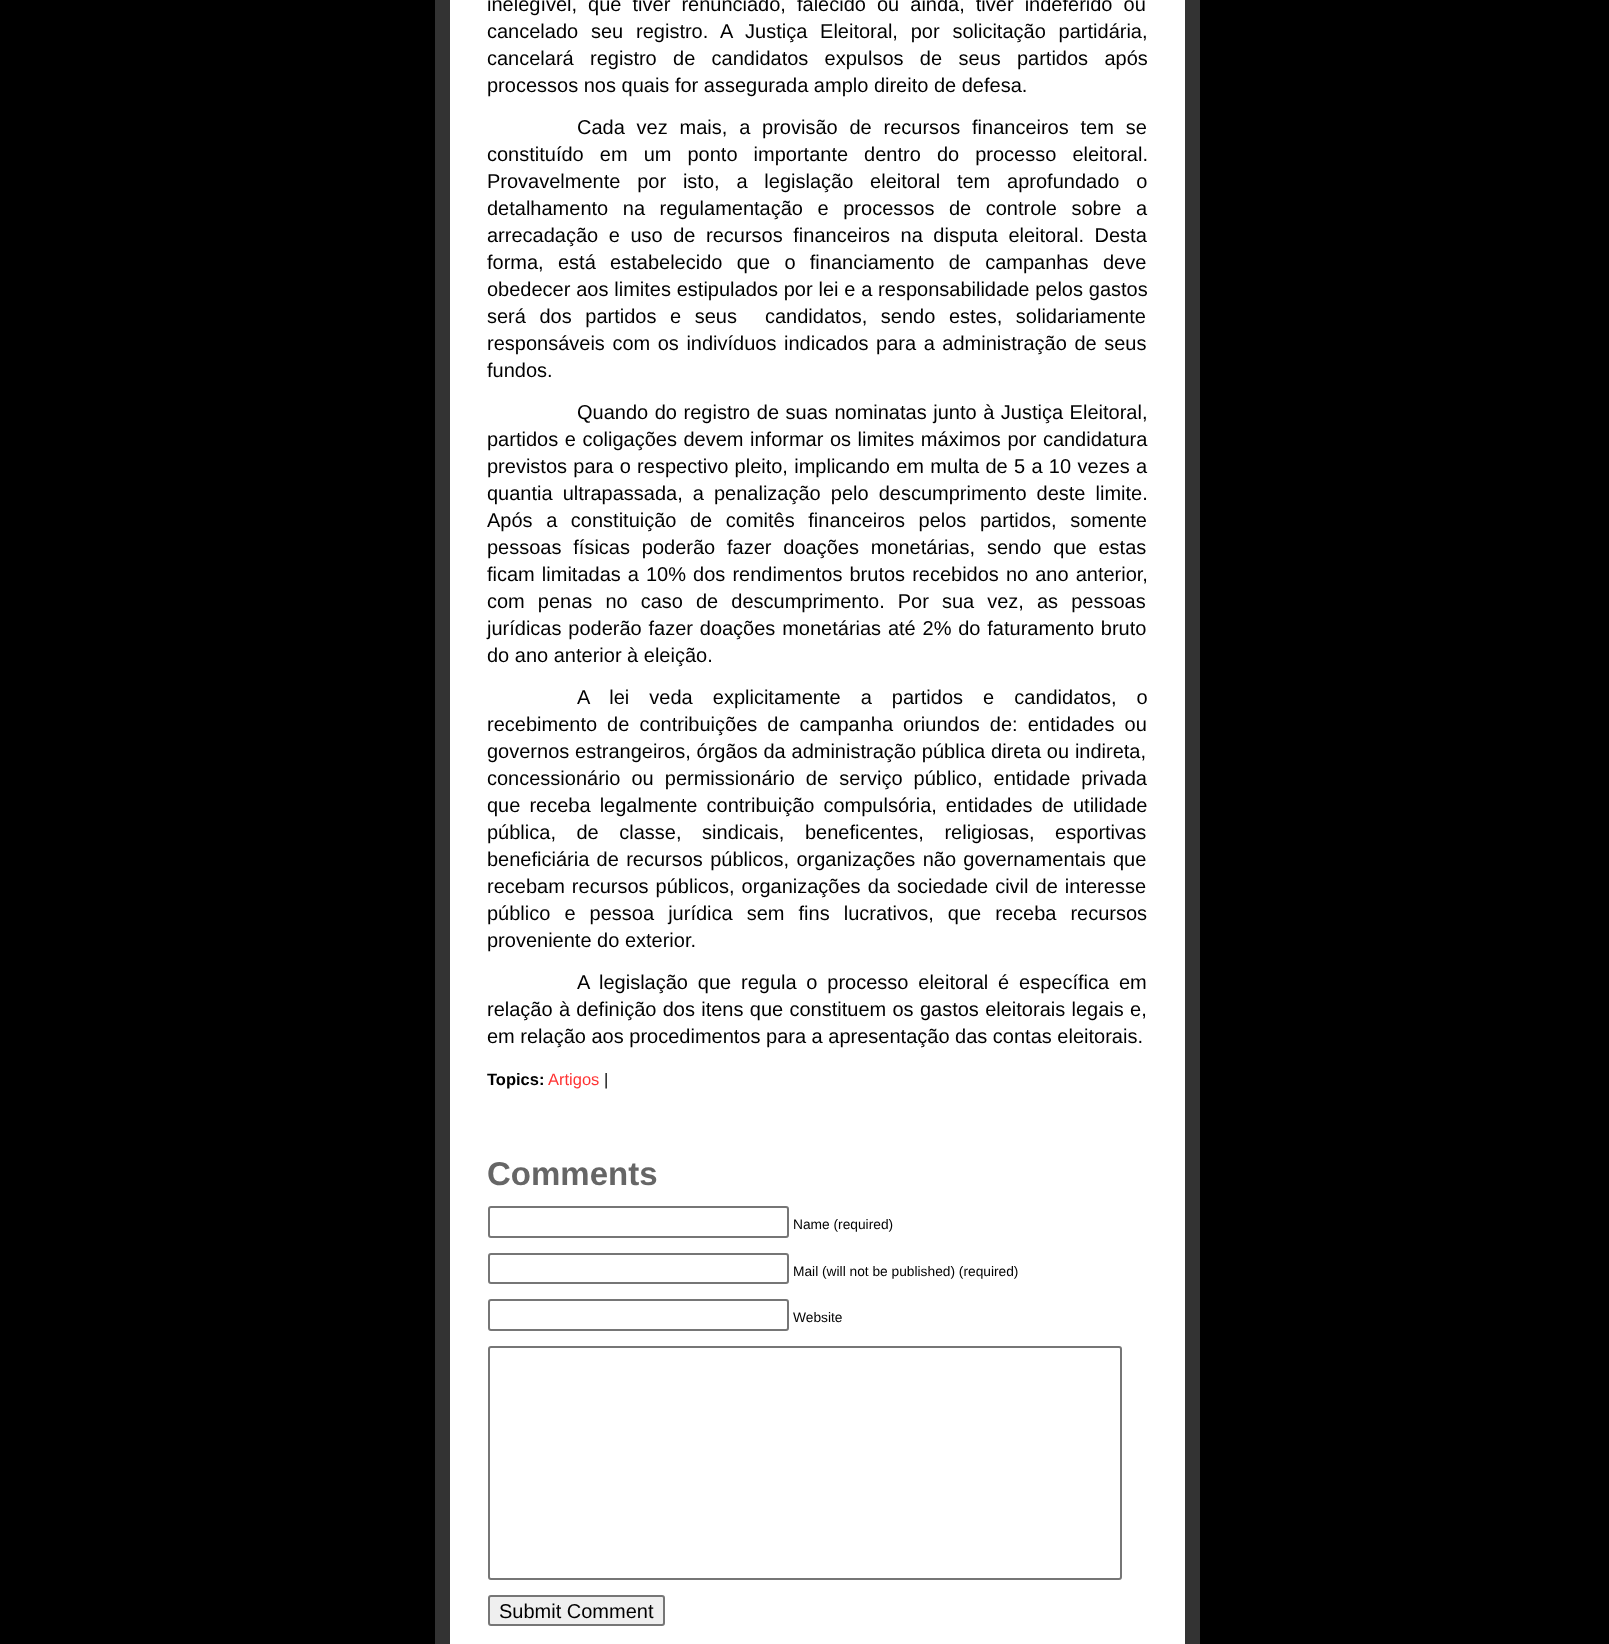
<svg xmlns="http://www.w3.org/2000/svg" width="1609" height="1644">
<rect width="100%" height="100%" fill="#000"/>
<rect x="442.5" y="-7.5" width="750" height="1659" fill="#fff" stroke="#333" stroke-width="15"/>
<text x="487" y="11" word-spacing="5.5" style="font-family:Liberation Sans;font-size:20px;fill:#000">inelegível, que tiver renunciado, falecido ou ainda, tiver indeferido ou</text>
<text x="487" y="38" word-spacing="7.25" style="font-family:Liberation Sans;font-size:20px;fill:#000">cancelado seu registro. A Justiça Eleitoral, por solicitação partidária,</text>
<text x="487" y="65" word-spacing="10.75" style="font-family:Liberation Sans;font-size:20px;fill:#000">cancelará registro de candidatos expulsos de seus partidos após</text>
<text x="487" y="92" style="font-family:Liberation Sans;font-size:20px;fill:#000">processos nos quais for assegurada amplo direito de defesa.</text>
<text x="577" y="134" word-spacing="6.25" style="font-family:Liberation Sans;font-size:20px;fill:#000">Cada vez mais, a provisão de recursos financeiros tem se</text>
<text x="487" y="161" word-spacing="10.5" style="font-family:Liberation Sans;font-size:20px;fill:#000">constituído em um ponto importante dentro do processo eleitoral.</text>
<text x="487" y="188" word-spacing="11.25" style="font-family:Liberation Sans;font-size:20px;fill:#000">Provavelmente por isto, a legislação eleitoral tem aprofundado o</text>
<text x="487" y="215" word-spacing="9" style="font-family:Liberation Sans;font-size:20px;fill:#000">detalhamento na regulamentação e processos de controle sobre a</text>
<text x="487" y="242" word-spacing="5" style="font-family:Liberation Sans;font-size:20px;fill:#000">arrecadação e uso de recursos financeiros na disputa eleitoral. Desta</text>
<text x="487" y="269" word-spacing="8.75" style="font-family:Liberation Sans;font-size:20px;fill:#000">forma, está estabelecido que o financiamento de campanhas deve</text>
<text x="487" y="296" word-spacing="0.25" style="font-family:Liberation Sans;font-size:20px;fill:#000">obedecer aos limites estipulados por lei e a responsabilidade pelos gastos</text>
<text x="487" y="323" word-spacing="8" style="font-family:Liberation Sans;font-size:20px;fill:#000">será dos partidos e seus</text>
<text x="765" y="323" word-spacing="8" style="font-family:Liberation Sans;font-size:20px;fill:#000">candidatos, sendo estes, solidariamente</text>
<text x="487" y="350" word-spacing="2" style="font-family:Liberation Sans;font-size:20px;fill:#000">responsáveis com os indivíduos indicados para a administração de seus</text>
<text x="487" y="377" style="font-family:Liberation Sans;font-size:20px;fill:#000">fundos.</text>
<text x="577" y="419" word-spacing="1" style="font-family:Liberation Sans;font-size:20px;fill:#000">Quando do registro de suas nominatas junto à Justiça Eleitoral,</text>
<text x="487" y="446" word-spacing="1" style="font-family:Liberation Sans;font-size:20px;fill:#000">partidos e coligações devem informar os limites máximos por candidatura</text>
<text x="487" y="473" word-spacing="0.75" style="font-family:Liberation Sans;font-size:20px;fill:#000">previstos para o respectivo pleito, implicando em multa de 5 a 10 vezes a</text>
<text x="487" y="500" word-spacing="4.5" style="font-family:Liberation Sans;font-size:20px;fill:#000">quantia ultrapassada, a penalização pelo descumprimento deste limite.</text>
<text x="487" y="527" word-spacing="8" style="font-family:Liberation Sans;font-size:20px;fill:#000">Após a constituição de comitês financeiros pelos partidos, somente</text>
<text x="487" y="554" word-spacing="6.25" style="font-family:Liberation Sans;font-size:20px;fill:#000">pessoas físicas poderão fazer doações monetárias, sendo que estas</text>
<text x="487" y="581" word-spacing="1.5" style="font-family:Liberation Sans;font-size:20px;fill:#000">ficam limitadas a 10% dos rendimentos brutos recebidos no ano anterior,</text>
<text x="487" y="608" word-spacing="7.5" style="font-family:Liberation Sans;font-size:20px;fill:#000">com penas no caso de descumprimento. Por sua vez, as pessoas</text>
<text x="487" y="635" word-spacing="1.25" style="font-family:Liberation Sans;font-size:20px;fill:#000">jurídicas poderão fazer doações monetárias até 2% do faturamento bruto</text>
<text x="487" y="662" style="font-family:Liberation Sans;font-size:20px;fill:#000">do ano anterior à eleição.</text>
<text x="577" y="704" word-spacing="14.5" style="font-family:Liberation Sans;font-size:20px;fill:#000">A lei veda explicitamente a partidos e candidatos, o</text>
<text x="487" y="731" word-spacing="4.5" style="font-family:Liberation Sans;font-size:20px;fill:#000">recebimento de contribuições de campanha oriundos de: entidades ou</text>
<text x="487" y="758" word-spacing="0.25" style="font-family:Liberation Sans;font-size:20px;fill:#000">governos estrangeiros, órgãos da administração pública direta ou indireta,</text>
<text x="487" y="785" word-spacing="5.5" style="font-family:Liberation Sans;font-size:20px;fill:#000">concessionário ou permissionário de serviço público, entidade privada</text>
<text x="487" y="812" word-spacing="3.5" style="font-family:Liberation Sans;font-size:20px;fill:#000">que receba legalmente contribuição compulsória, entidades de utilidade</text>
<text x="487" y="839" word-spacing="15" style="font-family:Liberation Sans;font-size:20px;fill:#000">pública, de classe, sindicais, beneficentes, religiosas, esportivas</text>
<text x="487" y="866" word-spacing="1.75" style="font-family:Liberation Sans;font-size:20px;fill:#000">beneficiária de recursos públicos, organizações não governamentais que</text>
<text x="487" y="893" word-spacing="1.5" style="font-family:Liberation Sans;font-size:20px;fill:#000">recebam recursos públicos, organizações da sociedade civil de interesse</text>
<text x="487" y="920" word-spacing="8.5" style="font-family:Liberation Sans;font-size:20px;fill:#000">público e pessoa jurídica sem fins lucrativos, que receba recursos</text>
<text x="487" y="947" style="font-family:Liberation Sans;font-size:20px;fill:#000">proveniente do exterior.</text>
<text x="577" y="989" word-spacing="4.25" style="font-family:Liberation Sans;font-size:20px;fill:#000">A legislação que regula o processo eleitoral é específica em</text>
<text x="487" y="1016" word-spacing="0.75" style="font-family:Liberation Sans;font-size:20px;fill:#000">relação à definição dos itens que constituem os gastos eleitorais legais e,</text>
<text x="487" y="1043" style="font-family:Liberation Sans;font-size:20px;fill:#000">em relação aos procedimentos para a apresentação das contas eleitorais.</text>
<text x="487" y="1085" style="font-family:Liberation Sans;font-size:16.5px;font-weight:bold;fill:#000">Topics:</text>
<text x="548" y="1085" style="font-family:Liberation Sans;font-size:16.5px;fill:#f33">Artigos</text>
<text x="604" y="1085" style="font-family:Liberation Sans;font-size:16.5px;fill:#000">|</text>
<text x="487" y="1185" style="font-family:Liberation Sans;font-size:33px;font-weight:bold;fill:#666">Comments</text>
<rect x="489" y="1207" width="299" height="30" rx="2" fill="none" stroke="#767676" stroke-width="2"/>
<text x="793" y="1229" style="font-family:Liberation Sans;font-size:13.75px;fill:#000">Name (required)</text>
<rect x="489" y="1254" width="299" height="29" rx="2" fill="none" stroke="#767676" stroke-width="2"/>
<text x="793" y="1276" style="font-family:Liberation Sans;font-size:13.75px;fill:#000">Mail (will not be published) (required)</text>
<rect x="489" y="1300" width="299" height="30" rx="2" fill="none" stroke="#767676" stroke-width="2"/>
<text x="793" y="1322" style="font-family:Liberation Sans;font-size:13.75px;fill:#000">Website</text>
<rect x="489" y="1347" width="632" height="232" rx="2" fill="none" stroke="#767676" stroke-width="2"/>
<rect x="489" y="1596" width="175" height="29" rx="2" fill="#efefef" stroke="#767676" stroke-width="2"/>
<text x="499" y="1618" style="font-family:Liberation Sans;font-size:20px;fill:#000">Submit Comment</text>
</svg>
